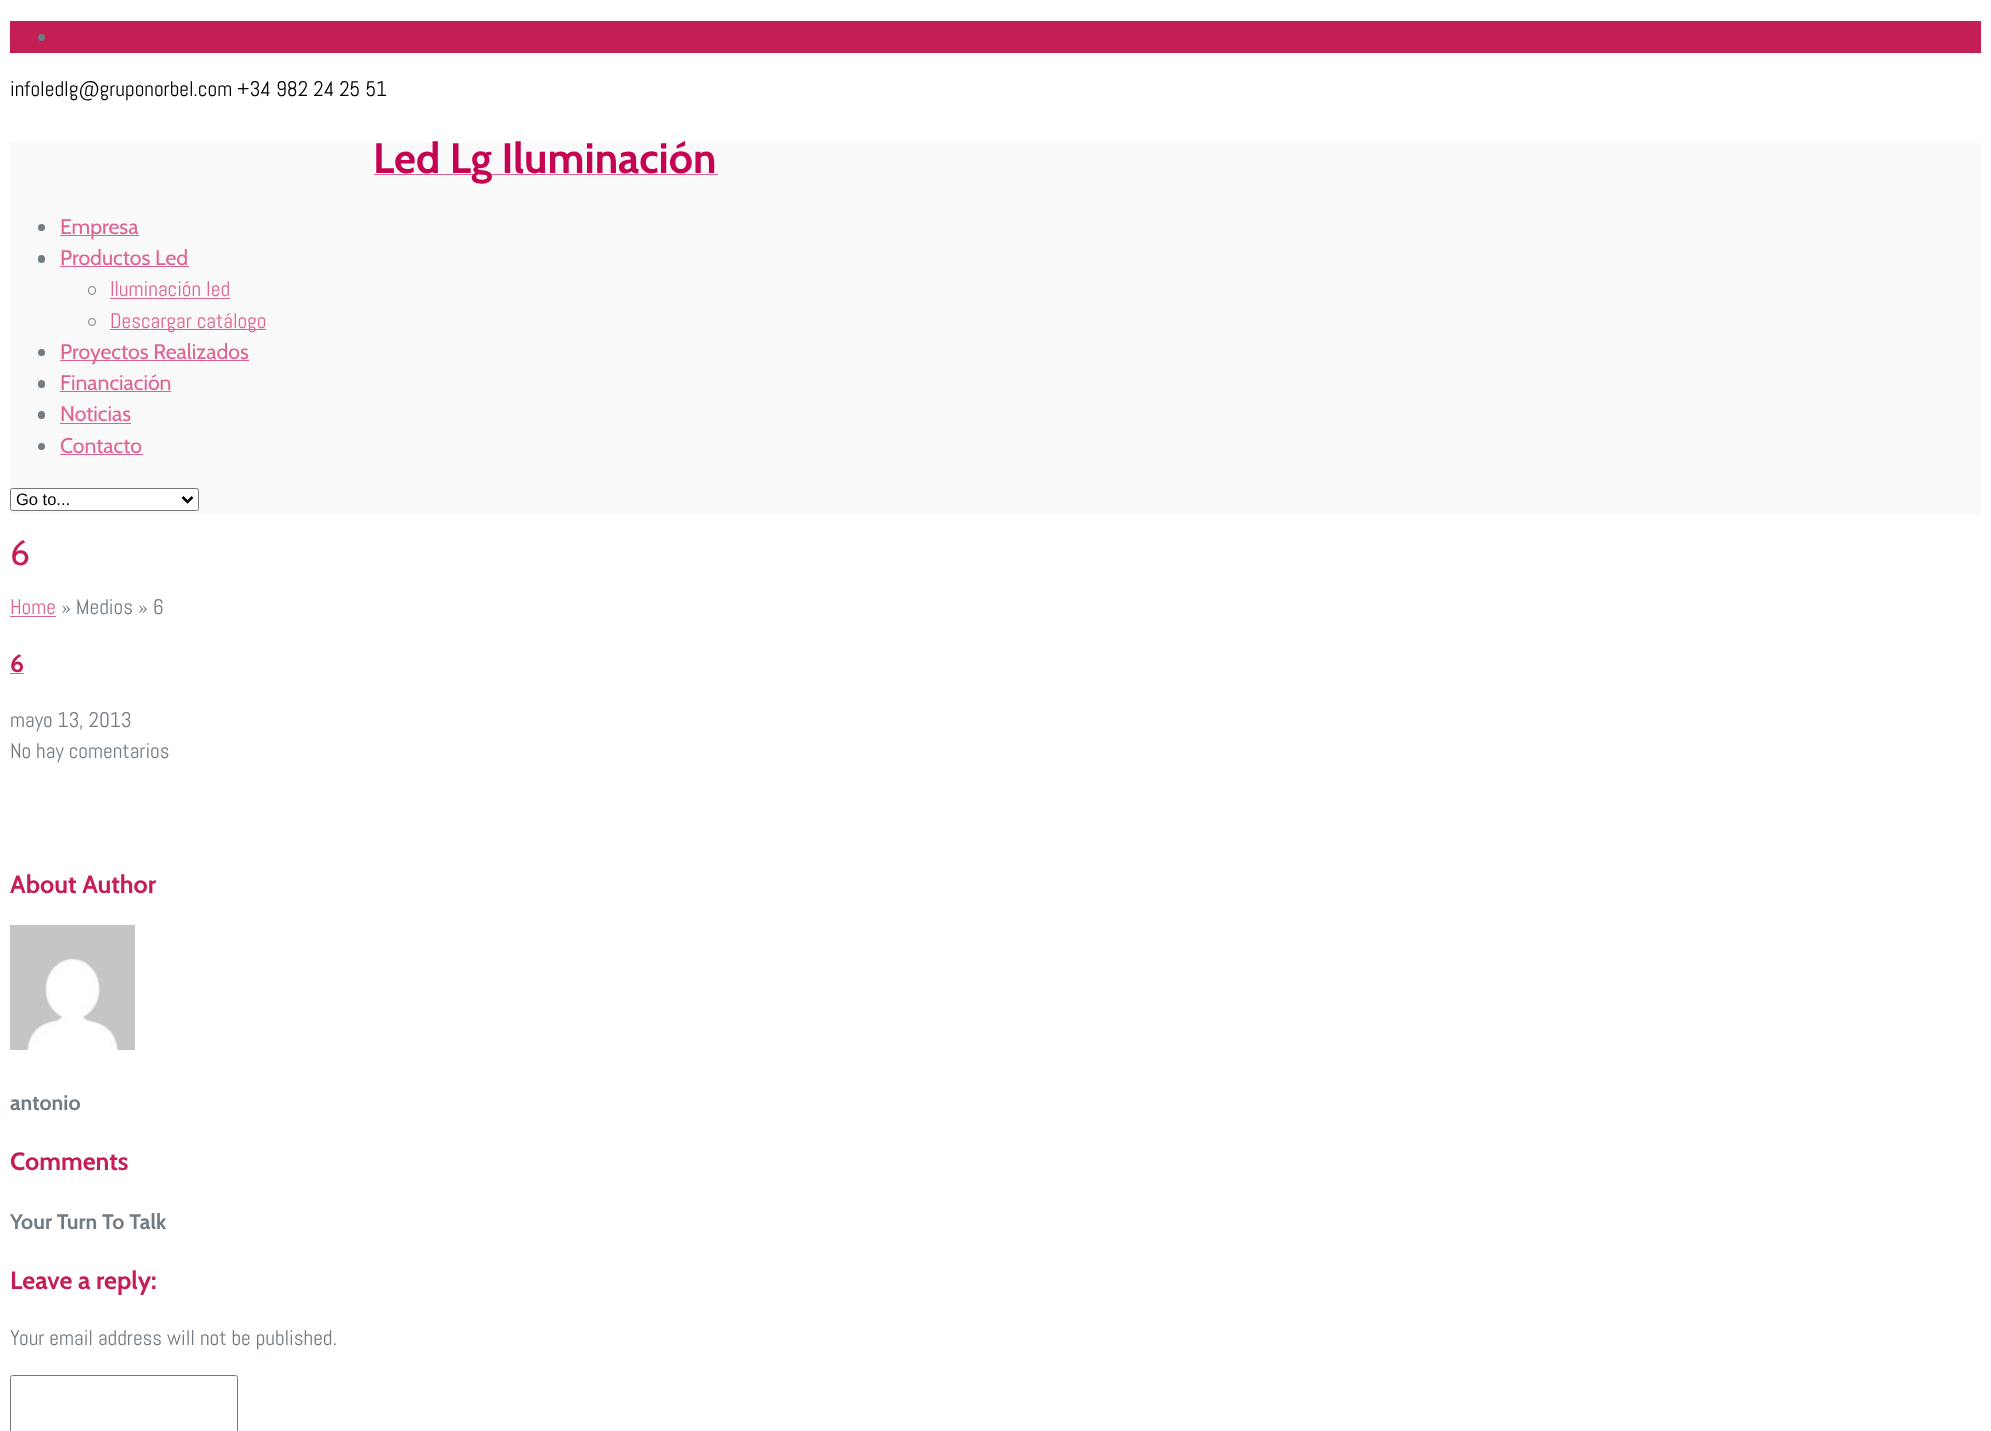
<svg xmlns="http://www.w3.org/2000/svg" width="1991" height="1431">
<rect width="100%" height="100%" fill="#fff"/>
<rect x="10" y="21" width="1971" height="32" fill="#c41e55"/>
<circle cx="41.5" cy="37.5" r="3.5" fill="#717b83"/>
<text x="10" y="96" style="font-family:Abel;font-size:21.25px;fill:#000">infoledlg@gruponorbel.com +34 982 24 25 51</text>
<rect x="10" y="143" width="1971" height="371" fill="#f9f9f9"/>
<rect x="374" y="174" width="344" height="1" fill="#de6294"/>
<text x="373" y="173" style="font-family:Cabin;font-size:42.5px;font-weight:bold;fill:#c40452">Led Lg Iluminación</text>
<circle cx="41.5" cy="227.5" r="3.5" fill="#717b83"/>
<rect x="60" y="235" width="79" height="1" fill="#de6294"/>
<text x="60" y="234" style="font-family:Cabin;font-size:21.25px;fill:#de6294">Empresa</text>
<rect x="38" y="255" width="7" height="8" rx="3.5" fill="#717b83"/>
<text x="60" y="265" style="font-family:Cabin;font-size:21.25px;fill:#de6294">Productos Led</text>
<rect x="60" y="266" width="129" height="1" fill="#de6294"/>
<rect x="88.5" y="286.5" width="7" height="8" rx="3.5" fill="none" stroke="#717b83"/>
<text x="110" y="296" style="font-family:Abel;font-size:21.25px;fill:#de6294">Iluminación led</text>
<rect x="110" y="298" width="120" height="1" fill="#de6294"/>
<circle cx="92" cy="322" r="3.5" fill="none" stroke="#717b83"/>
<rect x="110" y="329" width="156" height="1" fill="#de6294"/>
<text x="110" y="328" style="font-family:Abel;font-size:21.25px;fill:#de6294">Descargar catálogo</text>
<circle cx="41.5" cy="352.5" r="3.5" fill="#717b83"/>
<rect x="60" y="360" width="189" height="1" fill="#de6294"/>
<text x="60" y="359" style="font-family:Cabin;font-size:21.25px;fill:#de6294">Proyectos Realizados</text>
<rect x="38" y="380" width="7" height="8" rx="3.5" fill="#717b83"/>
<text x="60" y="390" style="font-family:Cabin;font-size:21.25px;fill:#de6294">Financiación</text>
<rect x="60" y="391" width="111" height="1" fill="#de6294"/>
<rect x="38" y="411" width="7" height="8" rx="3.5" fill="#717b83"/>
<text x="60" y="421" style="font-family:Cabin;font-size:21.25px;fill:#de6294">Noticias</text>
<rect x="60" y="423" width="71" height="1" fill="#de6294"/>
<circle cx="41.5" cy="446.5" r="3.5" fill="#717b83"/>
<text x="60" y="453" style="font-family:Cabin;font-size:21.25px;fill:#de6294">Contacto</text>
<rect x="60" y="454" width="83" height="1" fill="#de6294"/>
<rect x="10.5" y="488.5" width="188" height="22" rx="2" fill="#fff" stroke="#767676"/>
<path d="M182.5 497l5 5l5-5" fill="none" stroke="#000" stroke-width="2.5"/>
<text x="16" y="505" style="font-family:Liberation Sans;font-size:16.5px;fill:#000">Go to...</text>
<text x="10" y="565" style="font-family:Cabin;font-size:35px;fill:#c41e55">6</text>
<text x="10" y="614" style="font-family:Abel;font-size:21.25px;fill:#de6294">Home</text>
<rect x="10" y="616" width="46" height="1" fill="#de6294"/>
<text x="61" y="614" style="font-family:Abel;font-size:21.25px;fill:#717b83">» Medios » 6</text>
<text x="10" y="672" style="font-family:Cabin;font-size:25px;font-weight:bold;fill:#c41e55">6</text>
<rect x="10" y="673" width="14" height="1" fill="#de6294"/>
<text x="10" y="727" style="font-family:Abel;font-size:21.25px;fill:#717b83">mayo 13, 2013</text>
<text x="10" y="758" style="font-family:Abel;font-size:21.25px;fill:#717b83">No hay comentarios</text>
<text x="10" y="893" style="font-family:Cabin;font-size:25px;font-weight:bold;fill:#c41e55">About Author</text>
<image x="10" y="925" width="125" height="125" href="media/1.png"/>
<text x="10" y="1110" style="font-family:Cabin;font-size:21.25px;font-weight:bold;fill:#717b83">antonio</text>
<text x="10" y="1170" style="font-family:Cabin;font-size:25px;font-weight:bold;fill:#c41e55">Comments</text>
<text x="10" y="1229" style="font-family:Cabin;font-size:21.25px;font-weight:bold;fill:#717b83">Your Turn To Talk</text>
<text x="10" y="1289" style="font-family:Cabin;font-size:25px;font-weight:bold;fill:#c41e55">Leave a reply:</text>
<text x="10" y="1345" style="font-family:Abel;font-size:21.25px;fill:#717b83">Your email address will not be published.</text>
<rect x="10.5" y="1375.5" width="227" height="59" rx="2" fill="none" stroke="#767676"/>
</svg>
